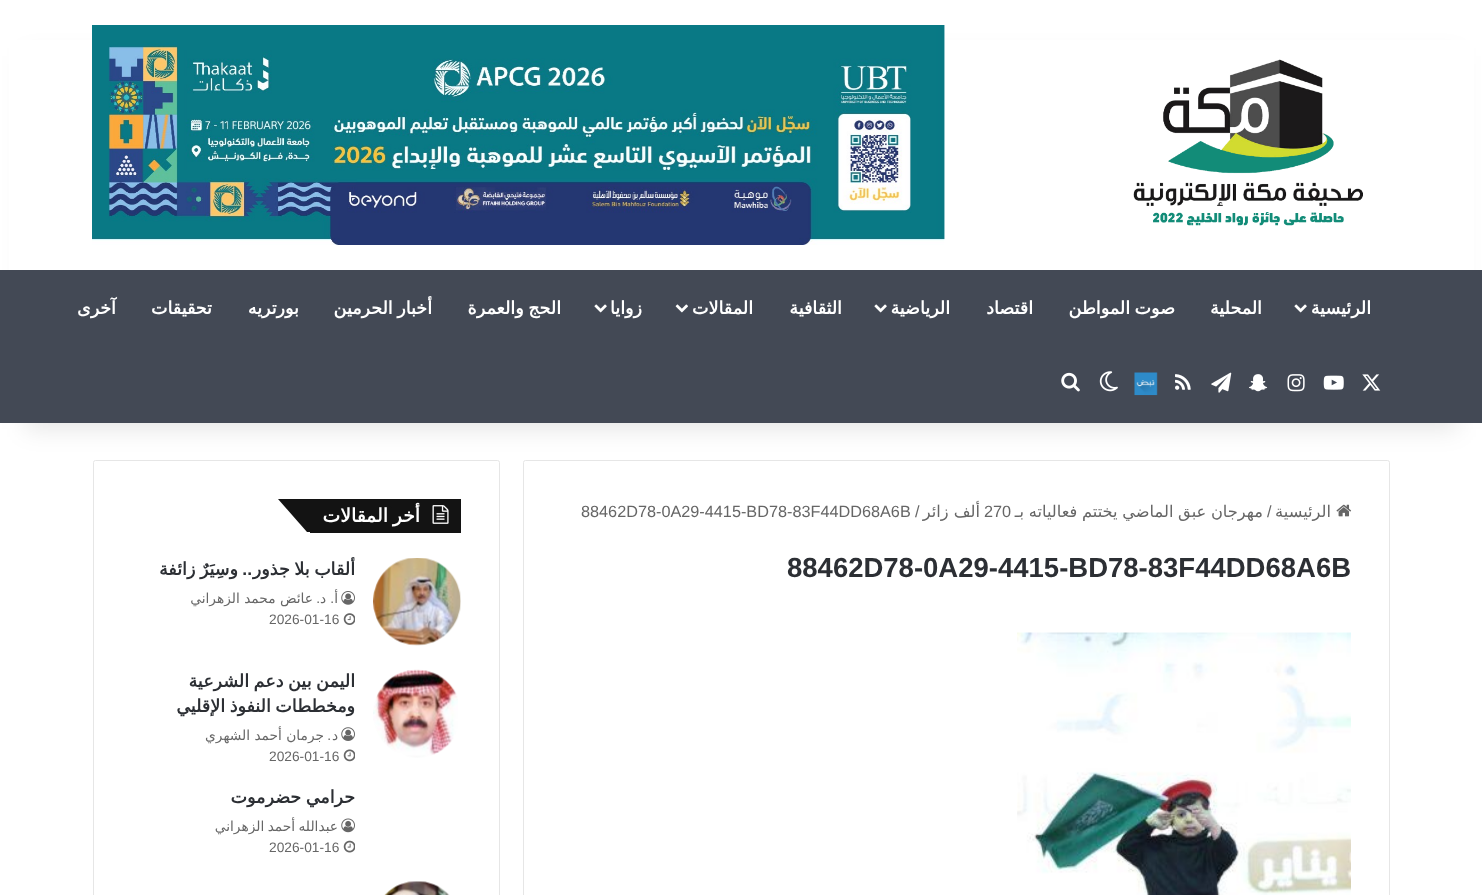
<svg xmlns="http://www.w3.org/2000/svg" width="1482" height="895">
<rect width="100%" height="100%" fill="#fff"/>
<rect x="523.5" y="460.5" width="866" height="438" rx="2" fill="none" stroke="#e6e6e6"/>
<rect x="93.5" y="460.5" width="406" height="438" rx="2" fill="none" stroke="#e6e6e6"/>
<rect x="25" y="56" width="1433" height="373" fill="#0000001a" filter="blur(12.5px)"/>
<rect x="9" y="40" width="1465" height="230" fill="#fff"/>
<image x="1133" y="59" width="230" height="167" href="media/1.png"/>
<image x="92" y="25" width="853" height="220" href="media/2.png"/>
<rect y="270" width="1482" height="153" fill="#434955"/>
<text x="1371" y="314" style="font-family:DejaVu Sans;font-size:17.5px;font-weight:bold;direction:rtl;fill:#fff">الرئيسية</text>
<image x="1294" y="304" width="13" height="9" href="media/3.png"/>
<text x="1262" y="314" style="font-family:DejaVu Sans;font-size:17.5px;font-weight:bold;direction:rtl;fill:#fff">المحلية</text>
<text x="1175" y="314" word-spacing="-1" style="font-family:DejaVu Sans;font-size:17.5px;font-weight:bold;direction:rtl;fill:#fff">صوت المواطن</text>
<text x="1033" y="314" style="font-family:DejaVu Sans;font-size:17.5px;font-weight:bold;direction:rtl;fill:#fff">اقتصاد</text>
<text x="950" y="314" style="font-family:DejaVu Sans;font-size:17.5px;font-weight:bold;direction:rtl;fill:#fff">الرياضية</text>
<image x="874" y="304" width="13" height="9" href="media/3.png"/>
<text x="842" y="314" style="font-family:DejaVu Sans;font-size:17.5px;font-weight:bold;direction:rtl;fill:#fff">الثقافية</text>
<text x="753" y="314" style="font-family:DejaVu Sans;font-size:17.5px;font-weight:bold;direction:rtl;fill:#fff">المقالات</text>
<image x="675" y="304" width="13" height="9" href="media/4.png"/>
<text x="642" y="314" style="font-family:DejaVu Sans;font-size:17.5px;font-weight:bold;direction:rtl;fill:#fff">زوايا</text>
<image x="594" y="304" width="13" height="9" href="media/3.png"/>
<text x="561" y="314" word-spacing="-1" style="font-family:DejaVu Sans;font-size:17.5px;font-weight:bold;direction:rtl;fill:#fff">الحج والعمرة</text>
<text x="432" y="314" word-spacing="-1" style="font-family:DejaVu Sans;font-size:17.5px;font-weight:bold;direction:rtl;fill:#fff">أخبار الحرمين</text>
<text x="299" y="314" style="font-family:DejaVu Sans;font-size:17.5px;font-weight:bold;direction:rtl;fill:#fff">بورتريه</text>
<text x="212" y="314" style="font-family:DejaVu Sans;font-size:17.5px;font-weight:bold;direction:rtl;fill:#fff">تحقيقات</text>
<text x="116" y="314" style="font-family:DejaVu Sans;font-size:17.5px;font-weight:bold;direction:rtl;fill:#fff">آخرى</text>
<image x="1362" y="374" width="19" height="17" href="media/5.png"/>
<image x="1323" y="375" width="21" height="15" href="media/6.png"/>
<image x="1287" y="374" width="18" height="18" href="media/7.png"/>
<image x="1249" y="374" width="19" height="18" href="media/8.png"/>
<image x="1211" y="372" width="21" height="21" href="media/9.png"/>
<image x="1175" y="374" width="16" height="16" href="media/10.png"/>
<image x="1134" y="372" width="24" height="24" href="media/11.png"/>
<image x="1099" y="371" width="19" height="21" href="media/12.png"/>
<image x="1061" y="372" width="19" height="20" href="media/13.png"/>
<image x="1336" y="504" width="16" height="13" href="media/14.png"/>
<text x="1331" y="517" style="font-family:DejaVu Sans;font-size:16.25px;direction:rtl;fill:#666">الرئيسية</text>
<text x="1267" y="517" style="font-family:Liberation Sans;font-size:16.25px;fill:#666">/</text>
<text x="1263" y="517" word-spacing="-0.5" style="font-family:DejaVu Sans;font-size:16.25px;direction:rtl;fill:#666">مهرجان عبق الماضي يختتم فعالياته بـ</text>
<text x="984" y="517" style="font-family:Liberation Sans;font-size:16.25px;fill:#666">270</text>
<text x="980" y="517" style="font-family:DejaVu Sans;font-size:16.25px;direction:rtl;fill:#666">ألف زائر</text>
<text x="915" y="517" style="font-family:Liberation Sans;font-size:16.25px;fill:#666">/</text>
<text x="581" y="517" style="font-family:Liberation Sans;font-size:16.25px;fill:#666">88462D78-0A29-4415-BD78-83F44DD68A6B</text>
<text x="787" y="577" style="font-family:Liberation Sans;font-size:27.5px;font-weight:bold;fill:#2c2f34">88462D78-0A29-4415-BD78-83F44DD68A6B</text>
<image x="1017" y="632" width="334" height="263" href="media/15.png"/>
<rect x="310" y="499" width="151" height="34" fill="#131313"/>
<path d="M278 499h106l29 33h-106z" fill="#131313"/>
<image x="432" y="505" width="17" height="19" href="media/16.png"/>
<text x="420" y="522" word-spacing="-1" style="font-family:DejaVu Sans;font-size:18.75px;font-weight:bold;direction:rtl;fill:#fff">أخر المقالات</text>
<image x="373" y="558" width="88" height="88" href="media/17.png"/>
<text x="355" y="575" word-spacing="-1" style="font-family:DejaVu Sans;font-size:17.5px;font-weight:bold;direction:rtl;fill:#2c2f34">ألقاب بلا جذور</text>
<text x="252" y="575" style="font-family:Liberation Sans;font-size:17.5px;font-weight:bold;direction:rtl;fill:#2c2f34">..</text>
<text x="238" y="575" word-spacing="-1" style="font-family:DejaVu Sans;font-size:17.5px;font-weight:bold;direction:rtl;fill:#2c2f34">وسِيَرٌ زائفة</text>
<image x="341" y="591" width="14" height="14" href="media/18.png"/>
<text x="338" y="603" style="font-family:DejaVu Sans;font-size:13.75px;direction:rtl;fill:#666">أ</text>
<text x="334" y="603" style="font-family:Liberation Sans;font-size:13.75px;direction:rtl;fill:#666">.</text>
<text x="326" y="603" style="font-family:DejaVu Sans;font-size:13.75px;direction:rtl;fill:#666">د</text>
<text x="320" y="603" style="font-family:Liberation Sans;font-size:13.75px;direction:rtl;fill:#666">.</text>
<text x="313" y="603" style="font-family:DejaVu Sans;font-size:13.75px;direction:rtl;fill:#666">عائض محمد الزهراني</text>
<image x="343" y="613" width="12" height="12" href="media/19.png"/>
<text x="269" y="624" style="font-family:Liberation Sans;font-size:13.75px;fill:#666">2026-01-16</text>
<image x="373" y="669" width="85" height="89" href="media/20.png"/>
<text x="355" y="687" word-spacing="-1" style="font-family:DejaVu Sans;font-size:17.5px;font-weight:bold;direction:rtl;fill:#2c2f34">اليمن بين دعم الشرعية</text>
<text x="355" y="712" word-spacing="-1" style="font-family:DejaVu Sans;font-size:17.5px;font-weight:bold;direction:rtl;fill:#2c2f34">ومخططات النفوذ الإقليي</text>
<image x="341" y="727" width="14" height="14" href="media/21.png"/>
<text x="338" y="740" style="font-family:DejaVu Sans;font-size:13.75px;direction:rtl;fill:#666">د</text>
<text x="331" y="740" style="font-family:Liberation Sans;font-size:13.75px;direction:rtl;fill:#666">.</text>
<text x="324" y="740" style="font-family:DejaVu Sans;font-size:13.75px;direction:rtl;fill:#666">جرمان أحمد الشهري</text>
<image x="343" y="749" width="12" height="13" href="media/22.png"/>
<text x="269" y="761" style="font-family:Liberation Sans;font-size:13.75px;fill:#666">2026-01-16</text>
<text x="355" y="803" word-spacing="-1" style="font-family:DejaVu Sans;font-size:17.5px;font-weight:bold;direction:rtl;fill:#2c2f34">حرامي حضرموت</text>
<image x="341" y="818" width="14" height="15" href="media/23.png"/>
<text x="338" y="831" word-spacing="-1" style="font-family:DejaVu Sans;font-size:13.75px;direction:rtl;fill:#666">عبدالله أحمد الزهراني</text>
<image x="343" y="840" width="12" height="13" href="media/24.png"/>
<text x="269" y="852" style="font-family:Liberation Sans;font-size:13.75px;fill:#666">2026-01-16</text>
<image x="384" y="881" width="66" height="14" href="media/25.png"/>
</svg>
